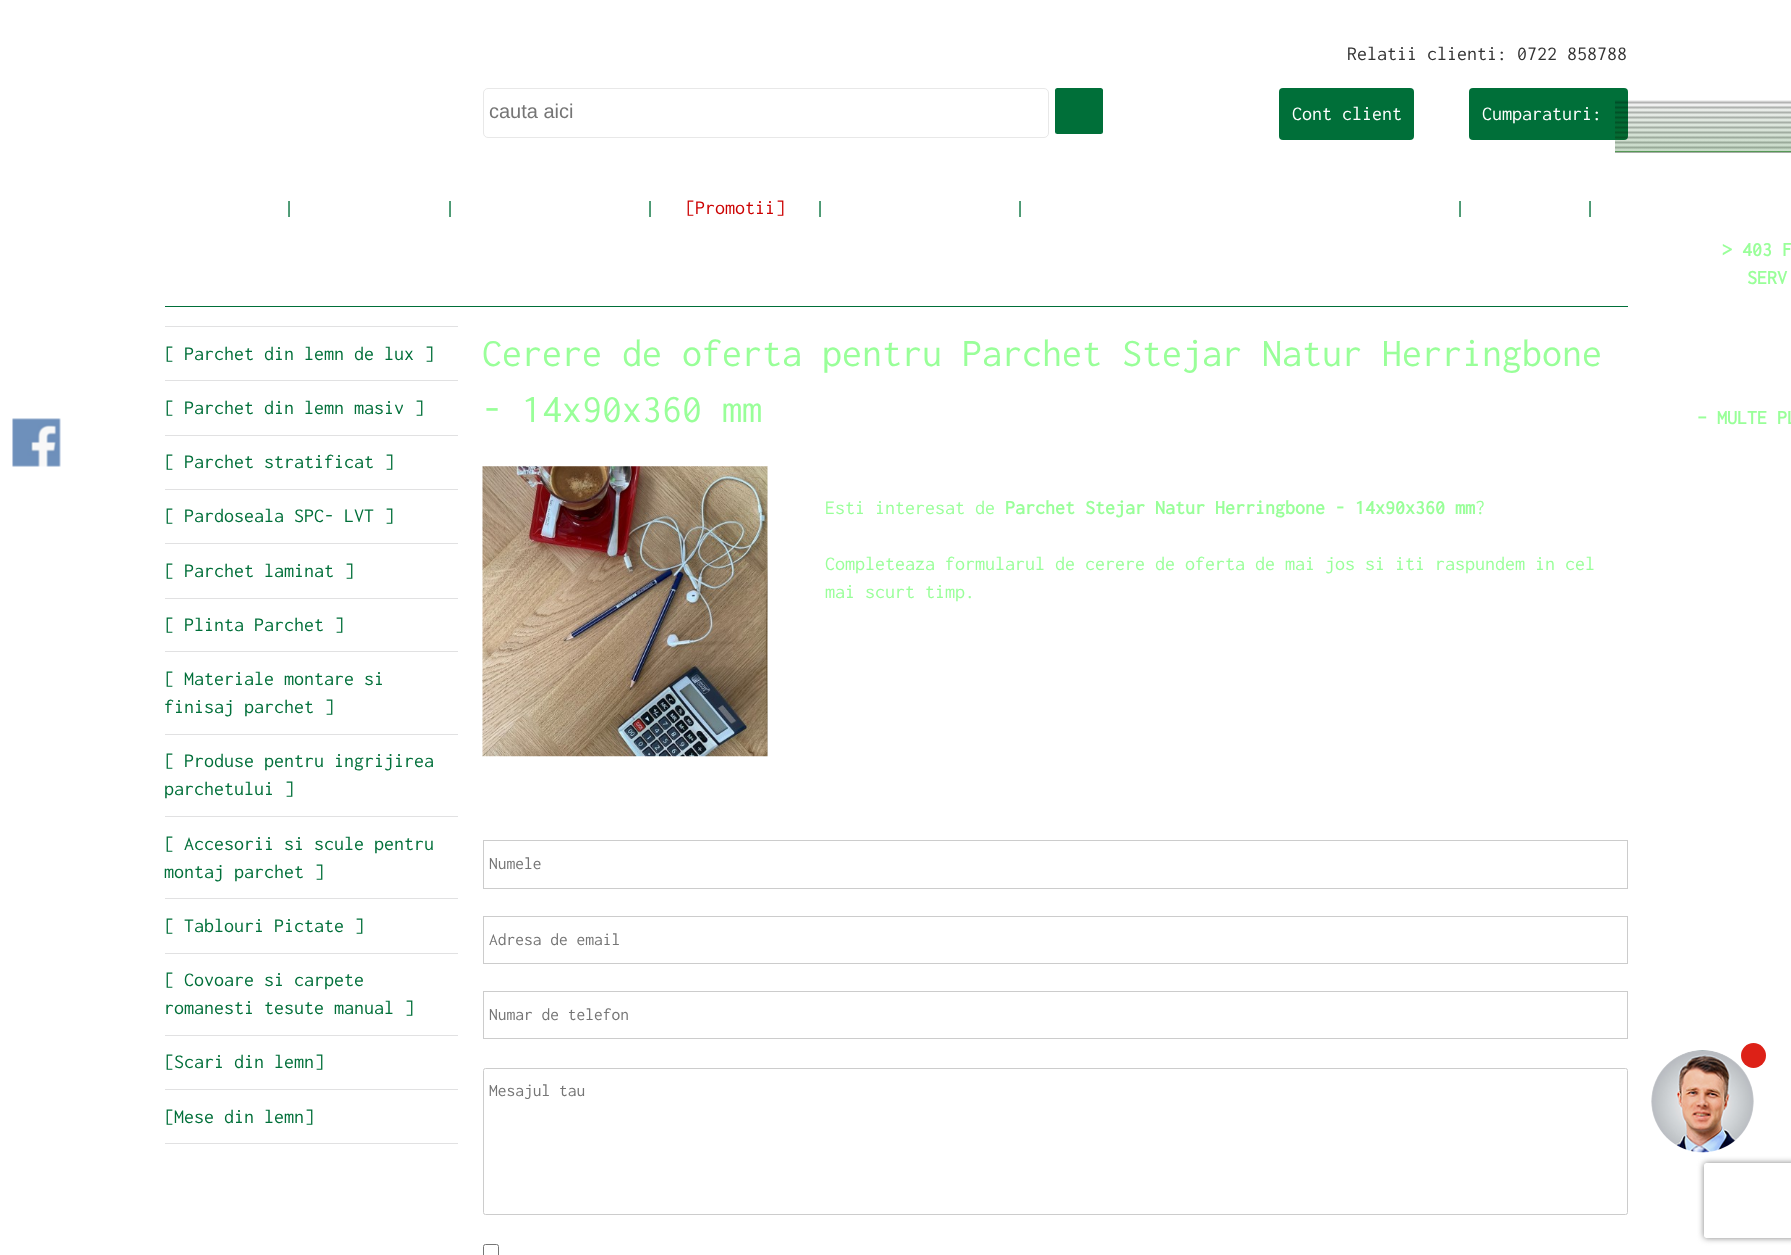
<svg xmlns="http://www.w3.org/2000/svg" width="1791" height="1255">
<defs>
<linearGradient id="g1" gradientUnits="userSpaceOnUse" x1="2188" y1="100" x2="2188" y2="105"><stop offset="0" stop-color="#000" stop-opacity="0"/><stop offset="0.5" stop-color="#000" stop-opacity="0.3"/><stop offset="1" stop-color="#000" stop-opacity="0"/></linearGradient>
<linearGradient id="g2" gradientUnits="userSpaceOnUse" x1="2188" y1="105" x2="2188" y2="110"><stop offset="0" stop-color="#000" stop-opacity="0"/><stop offset="0.5" stop-color="#000" stop-opacity="0.3"/><stop offset="1" stop-color="#000" stop-opacity="0"/></linearGradient>
<linearGradient id="g3" gradientUnits="userSpaceOnUse" x1="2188" y1="110" x2="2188" y2="115"><stop offset="0" stop-color="#000" stop-opacity="0"/><stop offset="0.5" stop-color="#000" stop-opacity="0.3"/><stop offset="1" stop-color="#000" stop-opacity="0"/></linearGradient>
<linearGradient id="g4" gradientUnits="userSpaceOnUse" x1="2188" y1="115" x2="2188" y2="120"><stop offset="0" stop-color="#000" stop-opacity="0"/><stop offset="0.5" stop-color="#000" stop-opacity="0.3"/><stop offset="1" stop-color="#000" stop-opacity="0"/></linearGradient>
<linearGradient id="g5" gradientUnits="userSpaceOnUse" x1="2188" y1="120" x2="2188" y2="125"><stop offset="0" stop-color="#000" stop-opacity="0"/><stop offset="0.5" stop-color="#000" stop-opacity="0.3"/><stop offset="1" stop-color="#000" stop-opacity="0"/></linearGradient>
<linearGradient id="g6" gradientUnits="userSpaceOnUse" x1="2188" y1="125" x2="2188" y2="130"><stop offset="0" stop-color="#000" stop-opacity="0"/><stop offset="0.5" stop-color="#000" stop-opacity="0.3"/><stop offset="1" stop-color="#000" stop-opacity="0"/></linearGradient>
<linearGradient id="g7" gradientUnits="userSpaceOnUse" x1="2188" y1="130" x2="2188" y2="135"><stop offset="0" stop-color="#000" stop-opacity="0"/><stop offset="0.5" stop-color="#000" stop-opacity="0.3"/><stop offset="1" stop-color="#000" stop-opacity="0"/></linearGradient>
<linearGradient id="g8" gradientUnits="userSpaceOnUse" x1="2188" y1="135" x2="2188" y2="140"><stop offset="0" stop-color="#000" stop-opacity="0"/><stop offset="0.5" stop-color="#000" stop-opacity="0.3"/><stop offset="1" stop-color="#000" stop-opacity="0"/></linearGradient>
<linearGradient id="g9" gradientUnits="userSpaceOnUse" x1="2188" y1="140" x2="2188" y2="145"><stop offset="0" stop-color="#fff"/><stop offset="0.5" stop-color="#b3b3b3"/><stop offset="1" stop-color="#fff"/></linearGradient>
<linearGradient id="g10" gradientUnits="userSpaceOnUse" x1="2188" y1="145" x2="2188" y2="150"><stop offset="0" stop-color="#fff"/><stop offset="0.5" stop-color="#b3b3b3"/><stop offset="1" stop-color="#fff"/></linearGradient>
<linearGradient id="g11" gradientUnits="userSpaceOnUse" x1="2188" y1="150" x2="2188" y2="155"><stop offset="0" stop-color="#fff"/><stop offset="0.5" stop-color="#b3b3b3"/><stop offset="1" stop-color="#fff"/></linearGradient>
<linearGradient id="g12" gradientUnits="userSpaceOnUse" x1="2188" y1="153" x2="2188" y2="100"><stop offset="0" stop-color="#208020" stop-opacity="0"/><stop offset="0.02" stop-color="#208020" stop-opacity="0.2"/><stop offset="0.03" stop-color="#208020" stop-opacity="0.8"/><stop offset="0.03" stop-color="#208020" stop-opacity="0.2"/><stop offset="1" stop-color="#208020" stop-opacity="0"/></linearGradient>
<clipPath id="clip1"><path d="M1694 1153h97v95h-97zm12.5 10h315c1.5 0 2.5 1 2.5 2.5v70c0 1.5-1 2.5-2.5 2.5h-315c-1.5 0-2.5-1-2.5-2.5v-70c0-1.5 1-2.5 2.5-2.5z" clip-rule="evenodd"/></clipPath>
</defs>
<rect width="100%" height="100%" fill="#fff"/>
<image x="12" y="418" width="49" height="49" href="media/1.png"/>
<text x="1347" y="60" style="font-family:Inconsolata;font-size:20px;fill:#333">Relatii clienti: 0722 858788</text>
<rect x="483.5" y="88.5" width="565" height="49" rx="4.5" fill="none" stroke="#e8e8e8"/>
<text x="489" y="118" style="font-family:Liberation Sans;font-size:20px;fill:#757575">cauta aici</text>
<rect x="1055" y="88" width="48" height="46" rx="2.5" fill="#006f39"/>
<rect x="1279" y="88" width="135" height="52" rx="4" fill="#006f39"/>
<text x="1292" y="120" style="font-family:Inconsolata;font-size:20px;fill:#fff">Cont client</text>
<rect x="1469" y="88" width="159" height="52" rx="4" fill="#006f39"/>
<text x="1482" y="120" style="font-family:Inconsolata;font-size:20px;fill:#fff">Cumparaturi:</text>
<rect x="1615" y="100" width="176" height="5" fill="url(#g1)"/>
<rect x="1615" y="105" width="176" height="5" fill="url(#g2)"/>
<rect x="1615" y="110" width="176" height="5" fill="url(#g3)"/>
<rect x="1615" y="115" width="176" height="5" fill="url(#g4)"/>
<rect x="1615" y="120" width="176" height="5" fill="url(#g5)"/>
<rect x="1615" y="125" width="176" height="5" fill="url(#g6)"/>
<rect x="1615" y="130" width="176" height="5" fill="url(#g7)"/>
<rect x="1615" y="135" width="176" height="5" fill="url(#g8)"/>
<rect x="1615" y="140" width="176" height="5" fill="url(#g9)"/>
<rect x="1615" y="145" width="176" height="5" fill="url(#g10)"/>
<rect x="1615" y="150" width="176" height="3" fill="url(#g11)"/>
<rect x="1615" y="106" width="176" height="47" fill="url(#g12)"/>
<text x="1722" y="256" style="font-family:Inconsolata;font-size:20px;font-weight:bold;fill:#9f9">&gt; 403 F</text>
<text x="1747" y="284" style="font-family:Inconsolata;font-size:20px;font-weight:bold;fill:#9f9">SERV</text>
<text x="1697" y="424" style="font-family:Inconsolata;font-size:20px;font-weight:bold;fill:#9f9">– MULTE PL</text>
<rect x="165" y="306" width="1463" height="1" fill="#006f39"/>
<text x="284" y="214" style="font-family:Inconsolata;font-size:20px;fill:#006f39">|</text>
<text x="445" y="214" style="font-family:Inconsolata;font-size:20px;fill:#006f39">|</text>
<text x="645" y="214" style="font-family:Inconsolata;font-size:20px;fill:#006f39">|</text>
<text x="685" y="214" style="font-family:Inconsolata;font-size:20px;fill:#c00">[Promotii]</text>
<text x="815" y="214" style="font-family:Inconsolata;font-size:20px;fill:#006f39">|</text>
<text x="1015" y="214" style="font-family:Inconsolata;font-size:20px;fill:#006f39">|</text>
<text x="1455" y="214" style="font-family:Inconsolata;font-size:20px;fill:#006f39">|</text>
<text x="1585" y="214" style="font-family:Inconsolata;font-size:20px;fill:#006f39">|</text>
<rect x="165" y="326" width="293" height="1" fill="#e1e1e2"/>
<rect x="165" y="380" width="293" height="1" fill="#e1e1e2"/>
<text x="164" y="360" style="font-family:Inconsolata;font-size:20px;fill:#006f39">[ Parchet din lemn de lux ]</text>
<rect x="165" y="435" width="293" height="1" fill="#e1e1e2"/>
<text x="164" y="414" style="font-family:Inconsolata;font-size:20px;fill:#006f39">[ Parchet din lemn masiv ]</text>
<rect x="165" y="489" width="293" height="1" fill="#e1e1e2"/>
<text x="164" y="468" style="font-family:Inconsolata;font-size:20px;fill:#006f39">[ Parchet stratificat ]</text>
<rect x="165" y="543" width="293" height="1" fill="#e1e1e2"/>
<text x="164" y="522" style="font-family:Inconsolata;font-size:20px;fill:#006f39">[ Pardoseala SPC- LVT ]</text>
<rect x="165" y="598" width="293" height="1" fill="#e1e1e2"/>
<text x="164" y="577" style="font-family:Inconsolata;font-size:20px;fill:#006f39">[ Parchet laminat ]</text>
<rect x="165" y="651" width="293" height="1" fill="#e1e1e2"/>
<text x="164" y="631" style="font-family:Inconsolata;font-size:20px;fill:#006f39">[ Plinta Parchet ]</text>
<rect x="165" y="734" width="293" height="1" fill="#e1e1e2"/>
<text x="164" y="685" style="font-family:Inconsolata;font-size:20px;fill:#006f39">[ Materiale montare si</text>
<text x="164" y="713" style="font-family:Inconsolata;font-size:20px;fill:#006f39">finisaj parchet ]</text>
<rect x="165" y="816" width="293" height="1" fill="#e1e1e2"/>
<text x="164" y="767" style="font-family:Inconsolata;font-size:20px;fill:#006f39">[ Produse pentru ingrijirea</text>
<text x="164" y="795" style="font-family:Inconsolata;font-size:20px;fill:#006f39">parchetului ]</text>
<rect x="165" y="898" width="293" height="1" fill="#e1e1e2"/>
<text x="164" y="850" style="font-family:Inconsolata;font-size:20px;fill:#006f39">[ Accesorii si scule pentru</text>
<text x="164" y="878" style="font-family:Inconsolata;font-size:20px;fill:#006f39">montaj parchet ]</text>
<rect x="165" y="953" width="293" height="1" fill="#e1e1e2"/>
<text x="164" y="932" style="font-family:Inconsolata;font-size:20px;fill:#006f39">[ Tablouri Pictate ]</text>
<rect x="165" y="1035" width="293" height="1" fill="#e1e1e2"/>
<text x="164" y="986" style="font-family:Inconsolata;font-size:20px;fill:#006f39">[ Covoare si carpete</text>
<text x="164" y="1014" style="font-family:Inconsolata;font-size:20px;fill:#006f39">romanesti tesute manual ]</text>
<rect x="165" y="1089" width="293" height="1" fill="#e1e1e2"/>
<text x="164" y="1068" style="font-family:Inconsolata;font-size:20px;fill:#006f39">[Scari din lemn]</text>
<rect x="165" y="1143" width="293" height="1" fill="#e1e1e2"/>
<text x="164" y="1123" style="font-family:Inconsolata;font-size:20px;fill:#006f39">[Mese din lemn]</text>
<text x="482" y="366" style="font-family:Inconsolata;font-size:40px;fill:#9f9">Cerere de oferta pentru Parchet Stejar Natur Herringbone</text>
<text x="482" y="422" style="font-family:Inconsolata;font-size:40px;fill:#9f9">- 14x90x360 mm</text>
<image x="482" y="466" width="286" height="291" href="media/2.png"/>
<text x="825" y="514" style="font-family:Inconsolata;font-size:20px;fill:#9f9">Esti interesat de</text>
<text x="1005" y="514" style="font-family:Inconsolata;font-size:20px;font-weight:bold;fill:#9f9">Parchet Stejar Natur Herringbone - 14x90x360 mm</text>
<text x="1475" y="514" style="font-family:Inconsolata;font-size:20px;fill:#9f9">?</text>
<text x="825" y="570" style="font-family:Inconsolata;font-size:20px;fill:#9f9">Completeaza formularul de cerere de oferta de mai jos si iti raspundem in cel</text>
<text x="825" y="598" style="font-family:Inconsolata;font-size:20px;fill:#9f9">mai scurt timp.</text>
<rect x="483.5" y="840.5" width="1144" height="48" fill="none" stroke="#ccc"/>
<text x="489" y="869" style="font-family:Inconsolata;font-size:17.5px;fill:#757575">Numele</text>
<rect x="483.5" y="916.5" width="1144" height="47" fill="none" stroke="#ccc"/>
<text x="489" y="945" style="font-family:Inconsolata;font-size:17.5px;fill:#757575">Adresa de email</text>
<rect x="483.5" y="991.5" width="1144" height="47" fill="none" stroke="#ccc"/>
<text x="489" y="1020" style="font-family:Inconsolata;font-size:17.5px;fill:#757575">Numar de telefon</text>
<rect x="483.5" y="1068.5" width="1144" height="146" rx="2" fill="none" stroke="#ccc"/>
<text x="489" y="1096" style="font-family:Inconsolata;font-size:17.5px;fill:#757575">Mesajul tau</text>
<rect x="483.5" y="1244.5" width="15" height="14" rx="2" fill="none" stroke="#767676"/>
<image x="1651" y="1050" width="103" height="103" href="media/3.png"/>
<circle cx="1753.5" cy="1055.5" r="12.5" fill="#dd2117"/>
<g clip-path="url(#clip1)">
<rect x="1704" y="1163" width="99" height="75" rx="2.5" fill="#808080" filter="blur(3px)"/>
</g>
</svg>
